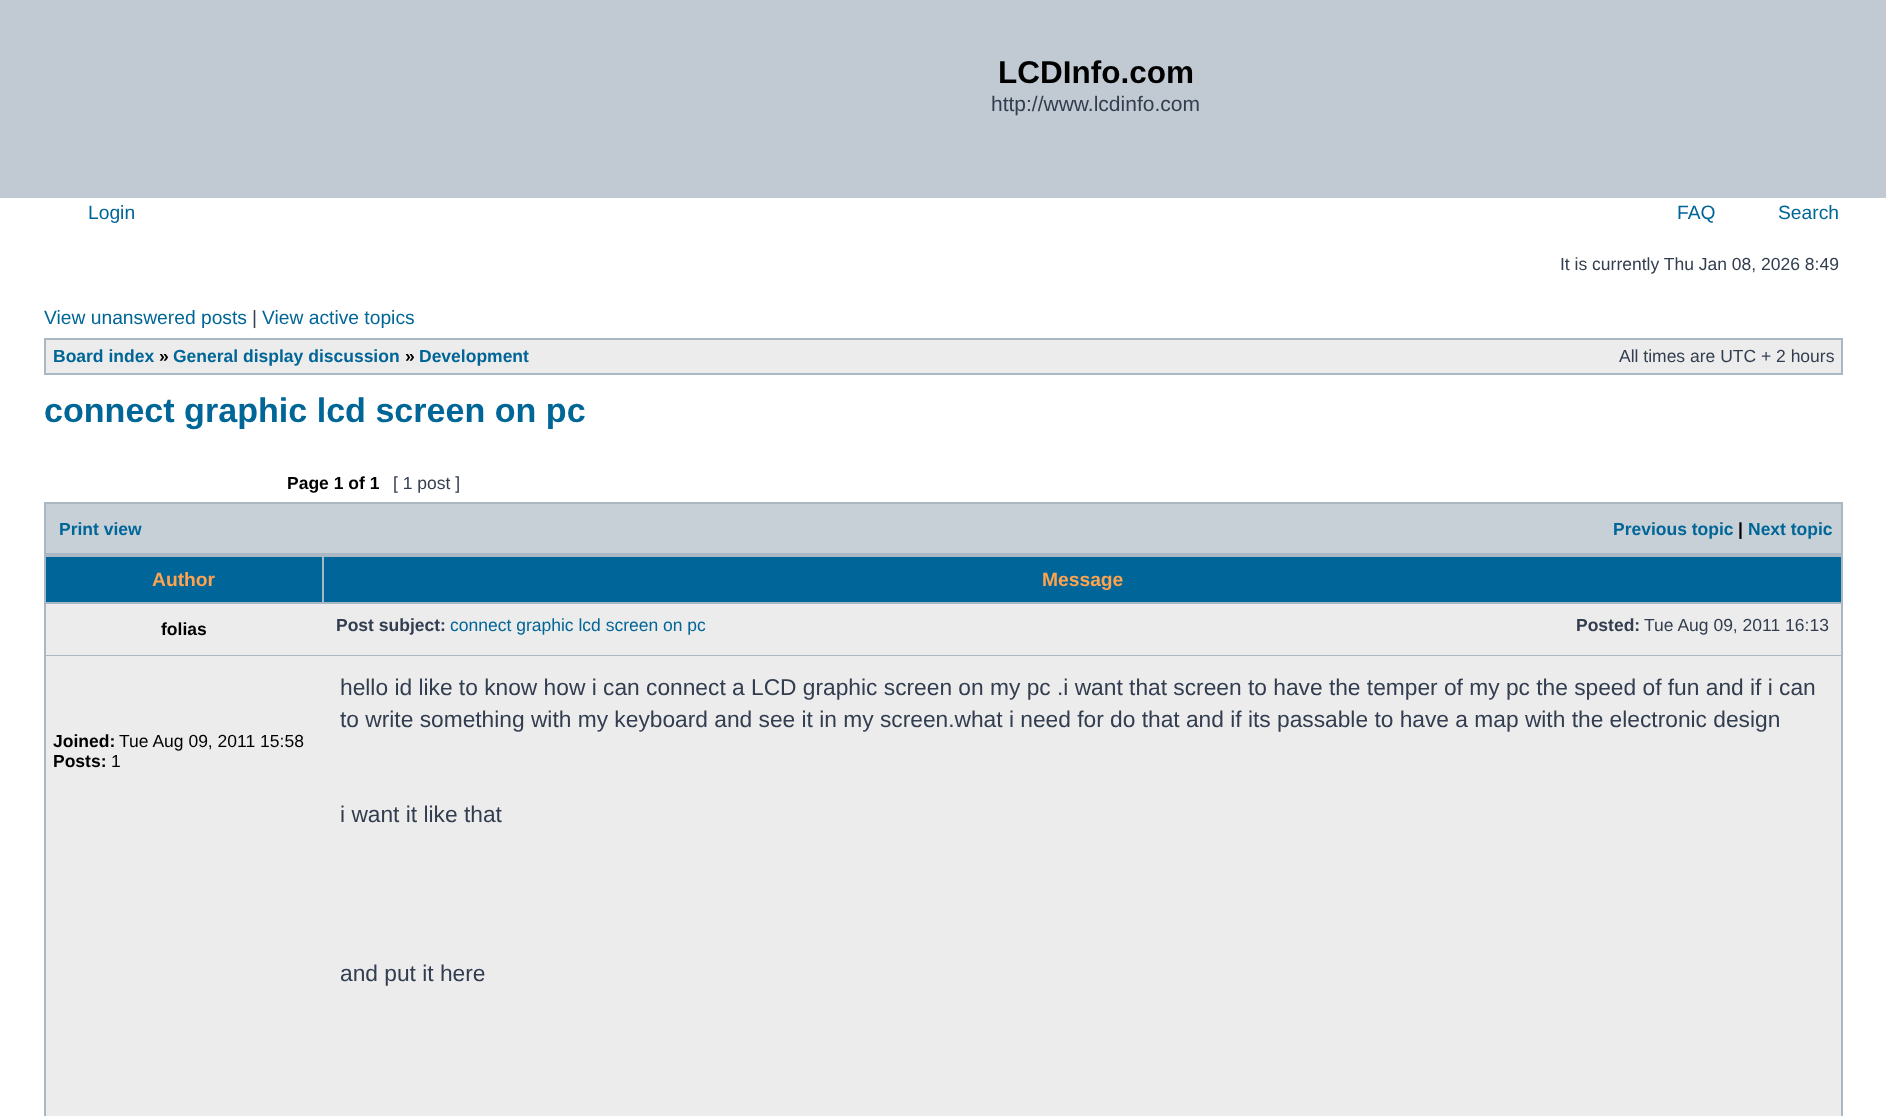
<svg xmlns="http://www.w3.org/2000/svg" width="1886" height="1116">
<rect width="100%" height="100%" fill="#fff"/>
<rect width="1886" height="198" fill="#c1cad2"/>
<text x="998" y="83" style="font-family:Liberation Sans;font-size:31.5px;font-weight:bold;fill:#000">LCDInfo.com</text>
<text x="991" y="111" style="font-family:Liberation Sans;font-size:21px;fill:#323d4f">http://www.lcdinfo.com</text>
<text x="88" y="219" style="font-family:Liberation Sans;font-size:19.25px;fill:#006597">Login</text>
<text x="1677" y="219" style="font-family:Liberation Sans;font-size:19.25px;fill:#006597">FAQ</text>
<text x="1778" y="219" style="font-family:Liberation Sans;font-size:19.25px;fill:#006597">Search</text>
<text x="1560" y="270" style="font-family:Liberation Sans;font-size:17.5px;fill:#323d4f">It is currently Thu Jan 08, 2026 8:49</text>
<text x="44" y="324" style="font-family:Liberation Sans;font-size:19.25px;fill:#006597">View unanswered posts</text>
<text x="252" y="324" style="font-family:Liberation Sans;font-size:19.25px;fill:#323d4f">|</text>
<text x="262" y="324" style="font-family:Liberation Sans;font-size:19.25px;fill:#006597">View active topics</text>
<rect x="44" y="338" width="1799" height="37" fill="#a9b8c2"/>
<rect x="46" y="340" width="1795" height="33" fill="#ececec"/>
<text x="53" y="362" style="font-family:Liberation Sans;font-size:17.5px;font-weight:bold;fill:#006597">Board index</text>
<text x="159" y="362" style="font-family:Liberation Sans;font-size:17.5px;font-weight:bold;fill:#000">»</text>
<text x="173" y="362" style="font-family:Liberation Sans;font-size:17.5px;font-weight:bold;fill:#006597">General display discussion</text>
<text x="405" y="362" style="font-family:Liberation Sans;font-size:17.5px;font-weight:bold;fill:#000">»</text>
<text x="419" y="362" style="font-family:Liberation Sans;font-size:17.5px;font-weight:bold;fill:#006597">Development</text>
<text x="1619" y="362" style="font-family:Liberation Sans;font-size:17.5px;fill:#323d4f">All times are UTC + 2 hours</text>
<text x="44" y="422" style="font-family:Liberation Sans;font-size:34.1px;font-weight:bold;fill:#006597">connect graphic lcd screen on pc</text>
<text x="287" y="489" style="font-family:Liberation Sans;font-size:17.5px;font-weight:bold;fill:#000">Page 1 of 1</text>
<text x="393" y="489" style="font-family:Liberation Sans;font-size:17.5px;fill:#323d4f">[ 1 post ]</text>
<rect x="44" y="502" width="1799" height="614" fill="#a9b8c2"/>
<rect x="46" y="504" width="1795" height="49" fill="#c7d0d7"/>
<text x="59" y="535" style="font-family:Liberation Sans;font-size:17.5px;font-weight:bold;fill:#006597">Print view</text>
<text x="1613" y="535" style="font-family:Liberation Sans;font-size:17.5px;font-weight:bold;fill:#006597">Previous topic</text>
<text x="1738" y="535" style="font-family:Liberation Sans;font-size:17.5px;font-weight:bold;fill:#000">|</text>
<text x="1748" y="535" style="font-family:Liberation Sans;font-size:17.5px;font-weight:bold;fill:#006597">Next topic</text>
<rect x="46" y="557" width="276" height="45" fill="#069"/>
<text x="152" y="586" style="font-family:Liberation Sans;font-size:19.25px;font-weight:bold;fill:#ffa34f">Author</text>
<rect x="324" y="557" width="1517" height="45" fill="#069"/>
<text x="1042" y="586" style="font-family:Liberation Sans;font-size:19.25px;font-weight:bold;fill:#ffa34f">Message</text>
<rect x="46" y="604" width="1795" height="51" fill="#ececec"/>
<text x="161" y="635" style="font-family:Liberation Sans;font-size:17.5px;font-weight:bold;fill:#000">folias</text>
<text x="336" y="631" style="font-family:Liberation Sans;font-size:17.5px;font-weight:bold;fill:#323d4f">Post subject:</text>
<text x="450" y="631" style="font-family:Liberation Sans;font-size:17.5px;fill:#006597">connect graphic lcd screen on pc</text>
<text x="1576" y="631" style="font-family:Liberation Sans;font-size:17.5px;font-weight:bold;fill:#323d4f">Posted:</text>
<text x="1644" y="631" style="font-family:Liberation Sans;font-size:17.5px;fill:#323d4f">Tue Aug 09, 2011 16:13</text>
<rect x="46" y="656" width="1795" height="460" fill="#ececec"/>
<text x="53" y="747" style="font-family:Liberation Sans;font-size:17.5px;font-weight:bold;fill:#000">Joined:</text>
<text x="119" y="747" style="font-family:Liberation Sans;font-size:17.5px;fill:#000">Tue Aug 09, 2011 15:58</text>
<text x="53" y="767" style="font-family:Liberation Sans;font-size:17.5px;font-weight:bold;fill:#000">Posts:</text>
<text x="111" y="767" style="font-family:Liberation Sans;font-size:17.5px;fill:#000">1</text>
<text x="340" y="695" style="font-family:Liberation Sans;font-size:22.75px;fill:#323d4f">hello id like to know how i can connect a LCD graphic screen on my pc .i want that screen to have the temper of my pc the speed of fun and if i can</text>
<text x="340" y="727" style="font-family:Liberation Sans;font-size:22.75px;fill:#323d4f">to write something with my keyboard and see it in my screen.what i need for do that and if its passable to have a map with the electronic design</text>
<text x="340" y="822" style="font-family:Liberation Sans;font-size:22.75px;fill:#323d4f">i want it like that</text>
<text x="340" y="981" style="font-family:Liberation Sans;font-size:22.75px;fill:#323d4f">and put it here</text>
</svg>
